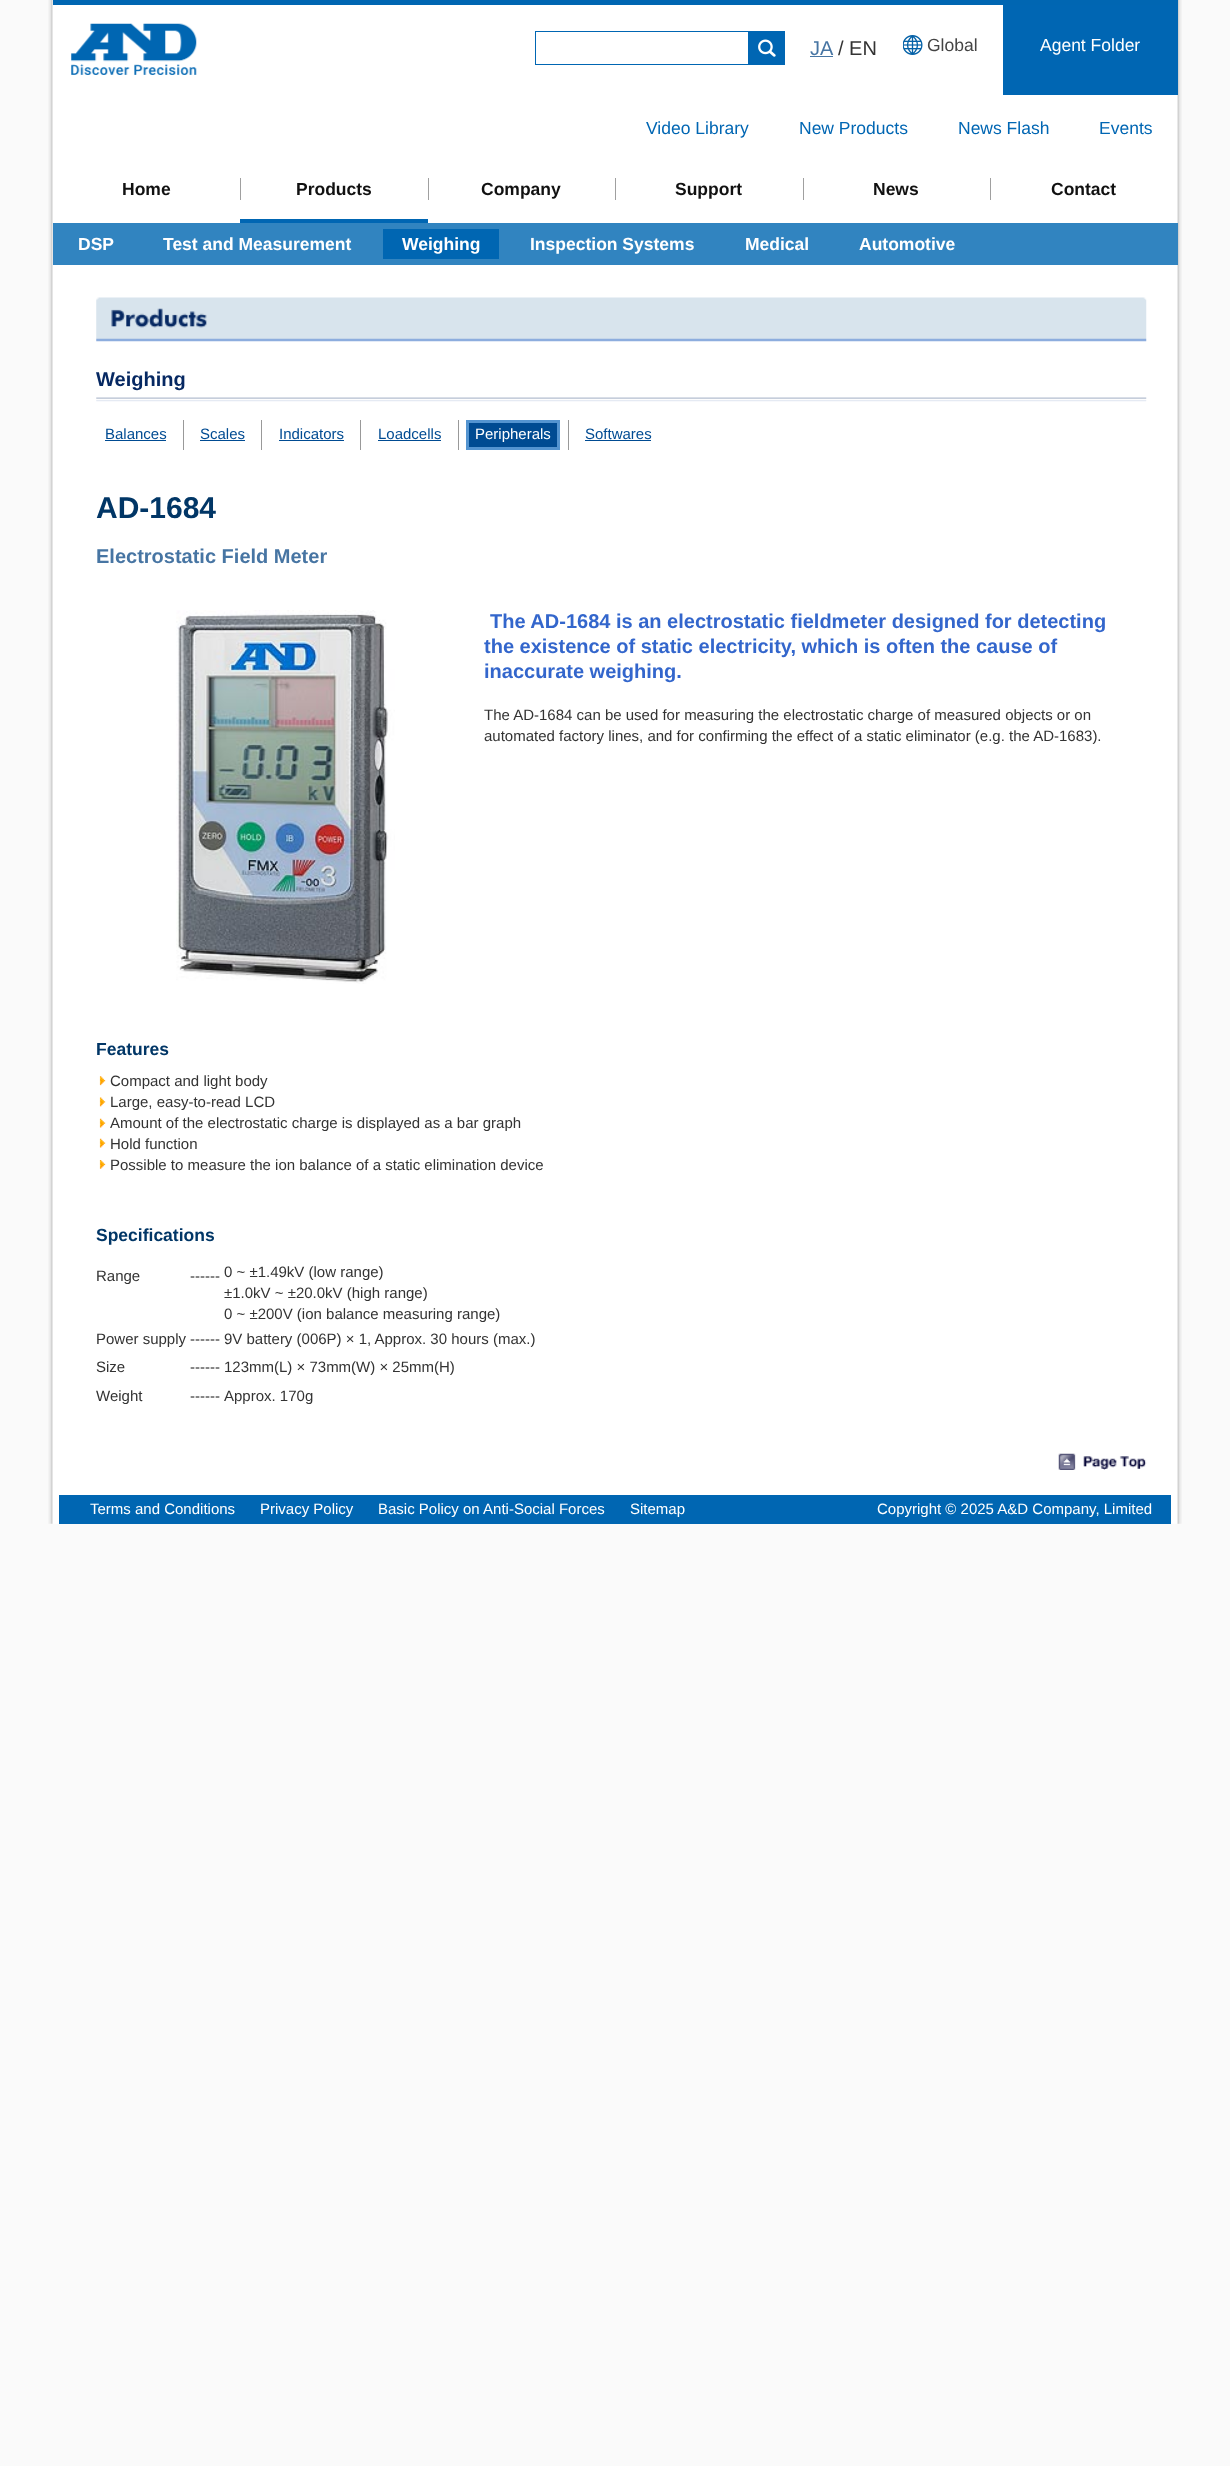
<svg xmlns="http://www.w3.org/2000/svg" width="1230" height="2466">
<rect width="100%" height="100%" fill="#fafafa"/>
<image x="48" y="0" width="1134" height="1524" href="media/1.png"/>
<rect x="53" width="1125" height="5" fill="#0066b2"/>
<image x="71" y="23" width="126" height="52" href="media/2.png"/>
<rect x="535.5" y="31.5" width="249" height="33" fill="none" stroke="#0066b3"/>
<rect x="748" y="32" width="36" height="32" fill="#0066b3"/>
<image x="758" y="39" width="18" height="18" href="media/3.png"/>
<text x="810" y="55" style="font-family:Liberation Sans;font-size:20px;fill:#4775a3">JA</text>
<rect x="810" y="56" width="23" height="1" fill="#4775a3"/>
<text x="838" y="55" style="font-family:Liberation Sans;font-size:20px;fill:#333">/ EN</text>
<image x="903" y="35" width="20" height="20" href="media/4.png"/>
<text x="927" y="51" style="font-family:Liberation Sans;font-size:17.5px;fill:#444">Global</text>
<rect x="1003" y="5" width="175" height="90" fill="#0066b3"/>
<text x="1040" y="51" style="font-family:Liberation Sans;font-size:17.5px;fill:#fff">Agent Folder</text>
<text x="646" y="134" style="font-family:Liberation Sans;font-size:17.5px;fill:#0066b3">Video Library</text>
<text x="799" y="134" style="font-family:Liberation Sans;font-size:17.5px;fill:#0066b3">New Products</text>
<text x="958" y="134" style="font-family:Liberation Sans;font-size:17.5px;fill:#0066b3">News Flash</text>
<text x="1099" y="134" style="font-family:Liberation Sans;font-size:17.5px;fill:#0066b3">Events</text>
<rect x="240" y="178" width="1" height="22" fill="#a0a0a0"/>
<text x="296" y="195" style="font-family:Liberation Sans;font-size:17.5px;font-weight:bold;fill:#111">Products</text>
<rect x="240" y="219" width="188" height="4" fill="#0066b3"/>
<rect x="53" y="223" width="1125" height="42" fill="#3184c0"/>
<text x="78" y="250" style="font-family:Liberation Sans;font-size:17.5px;font-weight:bold;fill:#fff">DSP</text>
<text x="163" y="250" style="font-family:Liberation Sans;font-size:17.5px;font-weight:bold;fill:#fff">Test and Measurement</text>
<rect x="383" y="229" width="116" height="30" fill="#0066b2"/>
<text x="402" y="250" style="font-family:Liberation Sans;font-size:17.5px;font-weight:bold;fill:#fff">Weighing</text>
<text x="530" y="250" style="font-family:Liberation Sans;font-size:17.5px;font-weight:bold;fill:#fff">Inspection Systems</text>
<text x="745" y="250" style="font-family:Liberation Sans;font-size:17.5px;font-weight:bold;fill:#fff">Medical</text>
<text x="859" y="250" style="font-family:Liberation Sans;font-size:17.5px;font-weight:bold;fill:#fff">Automotive</text>
<text x="122" y="195" style="font-family:Liberation Sans;font-size:17.5px;font-weight:bold;fill:#111">Home</text>
<rect x="428" y="178" width="1" height="22" fill="#a0a0a0"/>
<text x="481" y="195" style="font-family:Liberation Sans;font-size:17.5px;font-weight:bold;fill:#111">Company</text>
<rect x="615" y="178" width="1" height="22" fill="#a0a0a0"/>
<text x="675" y="195" style="font-family:Liberation Sans;font-size:17.5px;font-weight:bold;fill:#111">Support</text>
<rect x="803" y="178" width="1" height="22" fill="#a0a0a0"/>
<text x="873" y="195" style="font-family:Liberation Sans;font-size:17.5px;font-weight:bold;fill:#111">News</text>
<rect x="990" y="178" width="1" height="22" fill="#a0a0a0"/>
<text x="1051" y="195" style="font-family:Liberation Sans;font-size:17.5px;font-weight:bold;fill:#111">Contact</text>
<image x="96" y="297" width="1051" height="45" href="media/5.png"/>
<image x="96" y="397" width="1051" height="5" href="media/6.png"/>
<text x="96" y="386" style="font-family:Liberation Sans;font-size:20px;font-weight:bold;fill:#062862">Weighing</text>
<text x="105" y="439" style="font-family:Liberation Sans;font-size:15px;fill:#004b92">Balances</text>
<rect x="105" y="440" width="61" height="1" fill="#004b92"/>
<rect x="183" y="420" width="1" height="30" fill="#999"/>
<text x="200" y="439" style="font-family:Liberation Sans;font-size:15px;fill:#004b92">Scales</text>
<rect x="200" y="440" width="45" height="1" fill="#004b92"/>
<rect x="261" y="420" width="1" height="30" fill="#999"/>
<text x="279" y="439" style="font-family:Liberation Sans;font-size:15px;fill:#004b92">Indicators</text>
<rect x="279" y="440" width="65" height="1" fill="#004b92"/>
<rect x="360" y="420" width="1" height="30" fill="#999"/>
<text x="378" y="439" style="font-family:Liberation Sans;font-size:15px;fill:#004b92">Loadcells</text>
<rect x="378" y="440" width="63" height="1" fill="#004b92"/>
<rect x="458" y="420" width="1" height="30" fill="#999"/>
<rect x="467.5" y="421.5" width="91" height="27" fill="#004b92" stroke="#5494d0" stroke-width="3"/>
<text x="475" y="439" style="font-family:Liberation Sans;font-size:15px;fill:#fff">Peripherals</text>
<rect x="568" y="420" width="1" height="30" fill="#999"/>
<text x="585" y="439" style="font-family:Liberation Sans;font-size:15px;fill:#004b92">Softwares</text>
<rect x="585" y="440" width="66" height="1" fill="#004b92"/>
<text x="96" y="518" style="font-family:Liberation Sans;font-size:30px;font-weight:bold;fill:#013666">AD-1684</text>
<text x="96" y="563" style="font-family:Liberation Sans;font-size:20px;font-weight:bold;fill:#4775a3">Electrostatic Field Meter</text>
<image x="176" y="610" width="219" height="374" href="media/7.png"/>
<text x="490" y="628" style="font-family:Liberation Sans;font-size:20px;font-weight:bold;fill:#36c">The AD-1684 is an electrostatic fieldmeter designed for detecting</text>
<text x="484" y="653" style="font-family:Liberation Sans;font-size:20px;font-weight:bold;fill:#36c">the existence of static electricity, which is often the cause of</text>
<text x="484" y="678" style="font-family:Liberation Sans;font-size:20px;font-weight:bold;fill:#36c">inaccurate weighing.</text>
<text x="484" y="720" style="font-family:Liberation Sans;font-size:15px;fill:#333">The AD-1684 can be used for measuring the electrostatic charge of measured objects or on</text>
<text x="484" y="741" style="font-family:Liberation Sans;font-size:15px;fill:#333">automated factory lines, and for confirming the effect of a static eliminator (e.g. the AD-1683).</text>
<text x="96" y="1055" style="font-family:Liberation Sans;font-size:17.5px;font-weight:bold;fill:#013666">Features</text>
<image x="99" y="1076" width="7" height="10" href="media/8.png"/>
<text x="110" y="1086" style="font-family:Liberation Sans;font-size:15px;fill:#333">Compact and light body</text>
<image x="99" y="1097" width="7" height="10" href="media/9.png"/>
<text x="110" y="1107" style="font-family:Liberation Sans;font-size:15px;fill:#333">Large, easy-to-read LCD</text>
<image x="99" y="1118" width="7" height="10" href="media/10.png"/>
<text x="110" y="1128" style="font-family:Liberation Sans;font-size:15px;fill:#333">Amount of the electrostatic charge is displayed as a bar graph</text>
<image x="99" y="1138" width="7" height="10" href="media/10.png"/>
<text x="110" y="1149" style="font-family:Liberation Sans;font-size:15px;fill:#333">Hold function</text>
<image x="99" y="1160" width="7" height="9" href="media/11.png"/>
<text x="110" y="1170" style="font-family:Liberation Sans;font-size:15px;fill:#333">Possible to measure the ion balance of a static elimination device</text>
<text x="96" y="1241" style="font-family:Liberation Sans;font-size:17.5px;font-weight:bold;fill:#013666">Specifications</text>
<text x="96" y="1281" style="font-family:Liberation Sans;font-size:15px;fill:#333">Range</text>
<text x="190" y="1281" style="font-family:Liberation Sans;font-size:15px;fill:#333">------</text>
<text x="224" y="1277" style="font-family:Liberation Sans;font-size:15px;fill:#333">0 ~ ±1.49kV (low range)</text>
<text x="224" y="1298" style="font-family:Liberation Sans;font-size:15px;fill:#333">±1.0kV ~ ±20.0kV (high range)</text>
<text x="224" y="1319" style="font-family:Liberation Sans;font-size:15px;fill:#333">0 ~ ±200V (ion balance measuring range)</text>
<text x="96" y="1344" style="font-family:Liberation Sans;font-size:15px;fill:#333">Power supply</text>
<text x="190" y="1344" style="font-family:Liberation Sans;font-size:15px;fill:#333">------</text>
<text x="224" y="1344" style="font-family:Liberation Sans;font-size:15px;fill:#333">9V battery (006P) × 1, Approx. 30 hours (max.)</text>
<text x="96" y="1372" style="font-family:Liberation Sans;font-size:15px;fill:#333">Size</text>
<text x="190" y="1372" style="font-family:Liberation Sans;font-size:15px;fill:#333">------</text>
<text x="224" y="1372" style="font-family:Liberation Sans;font-size:15px;fill:#333">123mm(L) × 73mm(W) × 25mm(H)</text>
<text x="96" y="1401" style="font-family:Liberation Sans;font-size:15px;fill:#333">Weight</text>
<text x="190" y="1401" style="font-family:Liberation Sans;font-size:15px;fill:#333">------</text>
<text x="224" y="1401" style="font-family:Liberation Sans;font-size:15px;fill:#333">Approx. 170g</text>
<image x="1058" y="1453" width="89" height="17" href="media/12.png"/>
<rect x="59" y="1495" width="1112" height="29" fill="#0066b2"/>
<text x="90" y="1514" style="font-family:Liberation Sans;font-size:15px;fill:#fff">Terms and Conditions</text>
<text x="260" y="1514" style="font-family:Liberation Sans;font-size:15px;fill:#fff">Privacy Policy</text>
<text x="378" y="1514" style="font-family:Liberation Sans;font-size:15px;fill:#fff">Basic Policy on Anti-Social Forces</text>
<text x="630" y="1514" style="font-family:Liberation Sans;font-size:15px;fill:#fff">Sitemap</text>
<text x="877" y="1514" style="font-family:Liberation Sans;font-size:15px;fill:#fff">Copyright © 2025 A&amp;D Company, Limited</text>
</svg>
